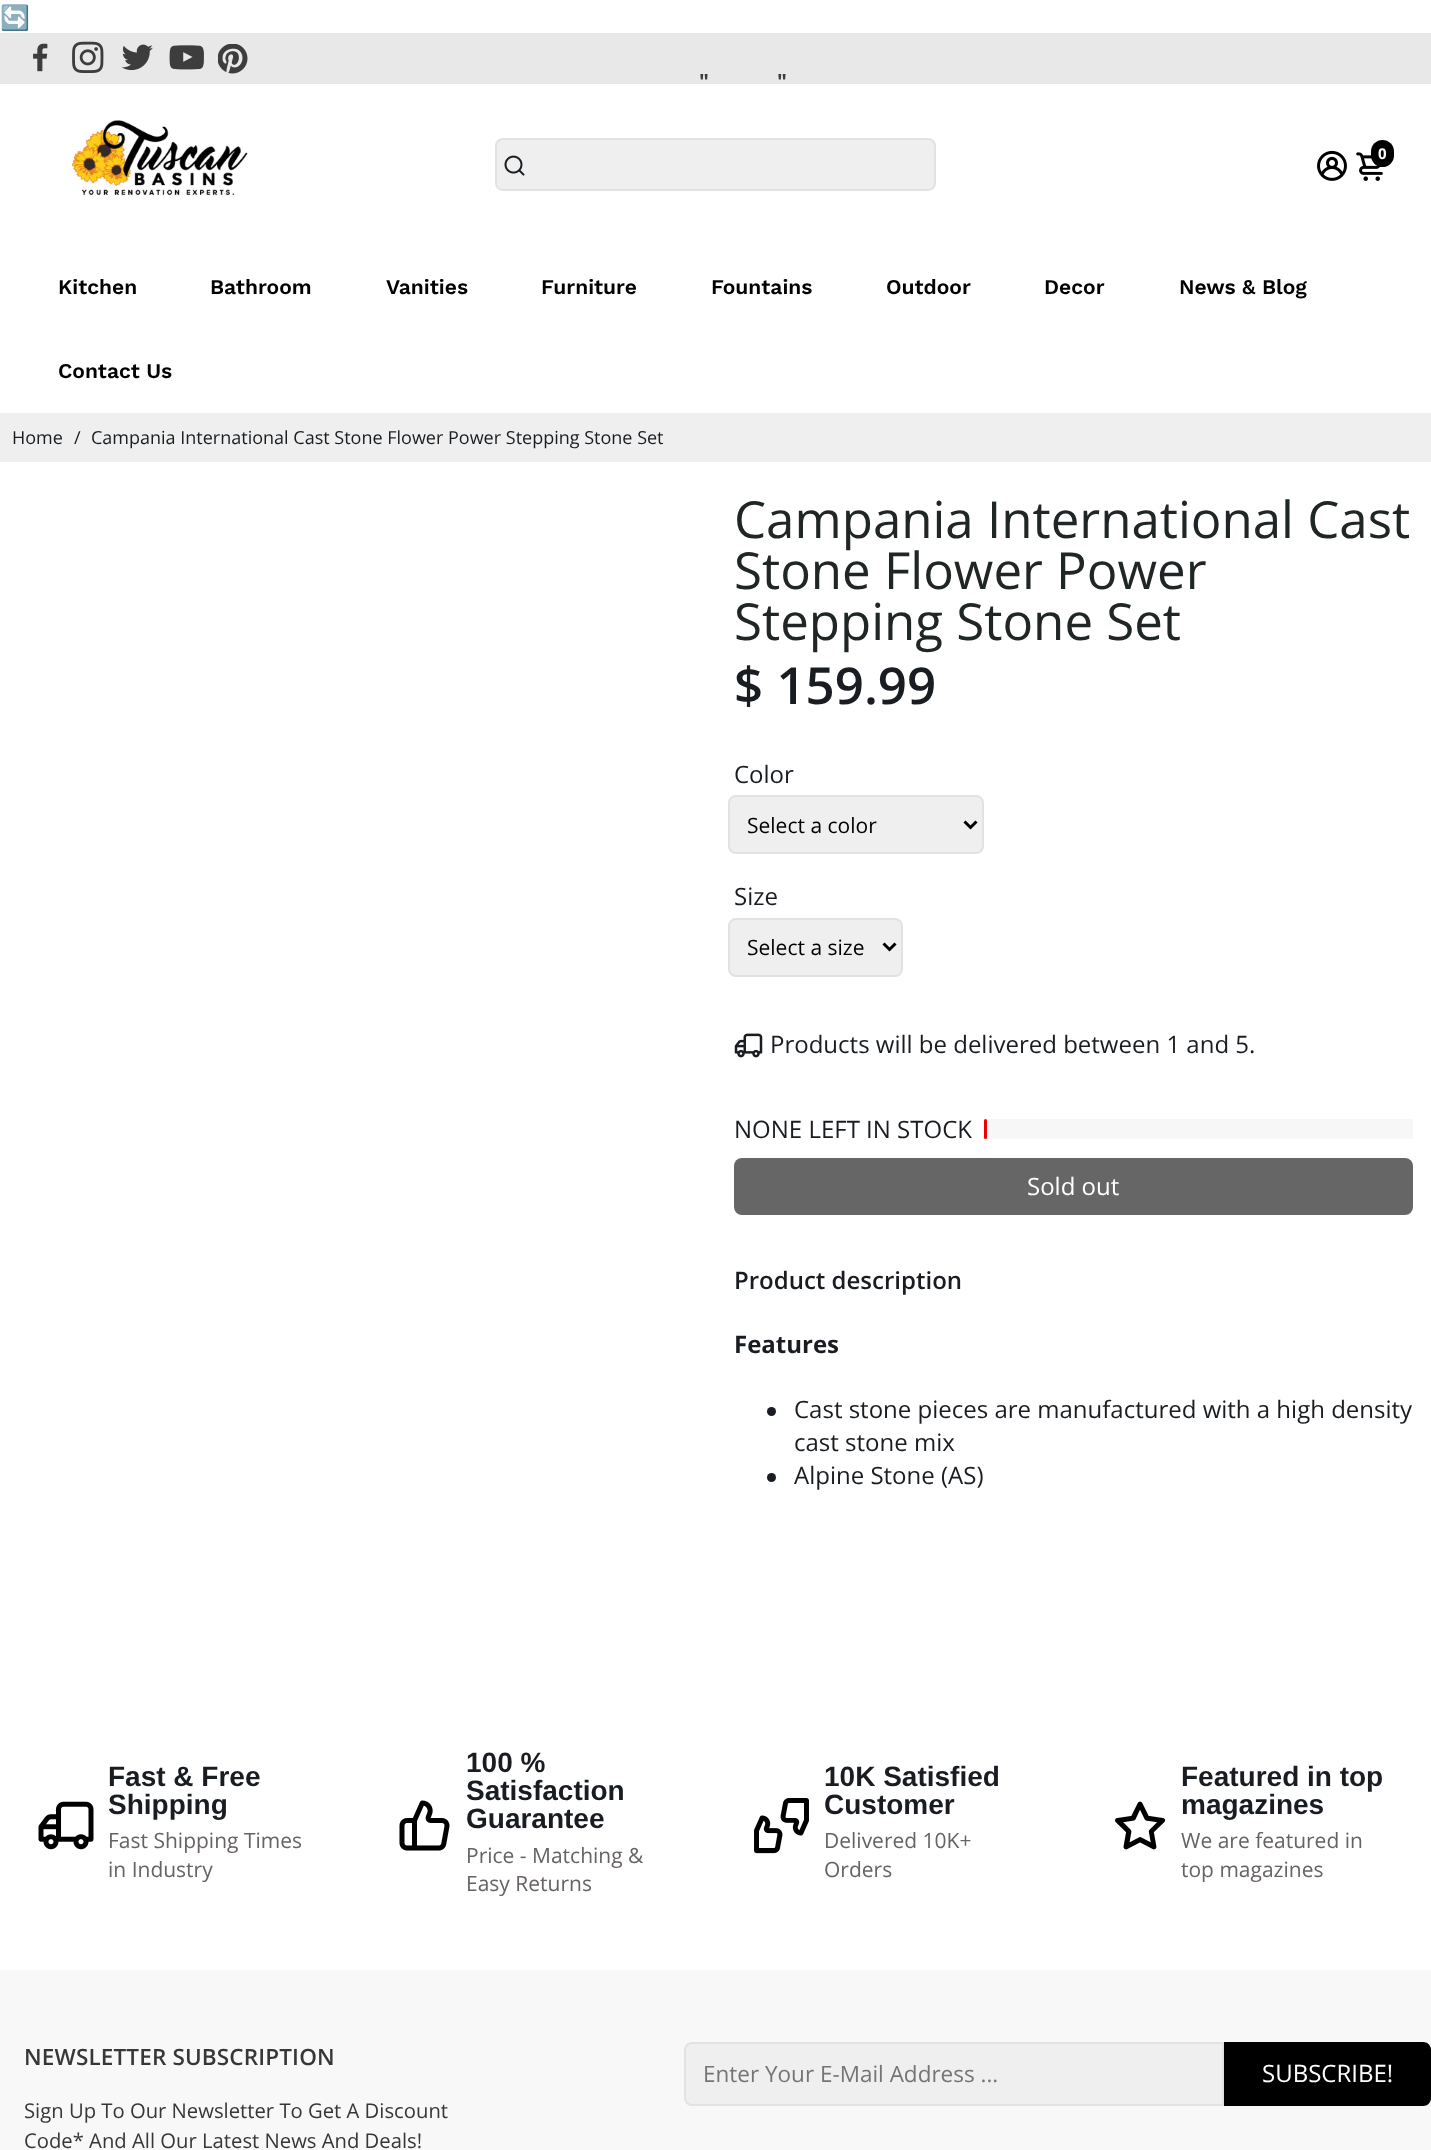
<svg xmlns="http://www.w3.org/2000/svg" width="1431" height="2150">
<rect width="100%" height="100%" fill="#fff"/>
<text x="0" y="26" style="font-family:Noto Color Emoji;font-size:24px;fill:#191d21">🔄</text>
<rect y="33" width="1431" height="51" fill="#e8e8e8"/>
<image x="33" y="43" width="15" height="29" href="media/1.png"/>
<image x="72" y="41" width="32" height="32" href="media/2.png"/>
<image x="121" y="44" width="32" height="27" href="media/3.png"/>
<image x="169" y="45" width="35" height="25" href="media/4.png"/>
<image x="218" y="44" width="30" height="30" href="media/5.png"/>
<text x="699" y="89" style="font-family:Open Sans;font-size:21px;font-weight:bold;fill:#3d3d3d">"</text>
<text x="777" y="89" style="font-family:Open Sans;font-size:21px;font-weight:bold;fill:#3d3d3d">"</text>
<image x="71" y="120" width="177" height="76" href="media/6.png"/>
<rect x="496" y="139" width="439" height="51" rx="7" fill="#efefef" stroke="#e2e2e2" stroke-width="2"/>
<image x="504" y="155" width="21" height="21" href="media/7.png"/>
<image x="1317" y="150" width="30" height="31" href="media/8.png"/>
<image x="1356" y="152" width="27" height="29" href="media/9.png"/>
<rect x="1371" y="140" width="23" height="27" rx="11.5" fill="#000"/>
<text x="1378" y="159" style="font-family:Open Sans;font-size:15px;font-weight:bold;fill:#fff">0</text>
<text x="58" y="294" style="font-family:Work Sans;font-size:21px;font-weight:600;fill:#000">Kitchen</text>
<text x="210" y="294" style="font-family:Work Sans;font-size:21px;font-weight:600;fill:#000">Bathroom</text>
<text x="386" y="294" style="font-family:Work Sans;font-size:21px;font-weight:600;fill:#000">Vanities</text>
<text x="541" y="294" style="font-family:Work Sans;font-size:21px;font-weight:600;fill:#000">Furniture</text>
<text x="711" y="294" style="font-family:Work Sans;font-size:21px;font-weight:600;fill:#000">Fountains</text>
<text x="886" y="294" style="font-family:Work Sans;font-size:21px;font-weight:600;fill:#000">Outdoor</text>
<text x="1044" y="294" style="font-family:Work Sans;font-size:21px;font-weight:600;fill:#000">Decor</text>
<text x="1179" y="294" style="font-family:Work Sans;font-size:21px;font-weight:600;fill:#000">News &amp; Blog</text>
<text x="58" y="378" style="font-family:Work Sans;font-size:21px;font-weight:600;fill:#000">Contact Us</text>
<rect y="413" width="1431" height="49" fill="#efefef"/>
<text x="12" y="444" style="font-family:Open Sans;font-size:18px;fill:#191d21">Home</text>
<text x="74" y="444" style="font-family:Open Sans;font-size:18px;fill:#191d21">/</text>
<text x="91" y="444" style="font-family:Open Sans;font-size:18px;fill:#191d21">Campania International Cast Stone Flower Power Stepping Stone Set</text>
<text x="734" y="538" style="font-family:Open Sans;font-size:51px;fill:#202626">Campania International Cast</text>
<text x="734" y="589" style="font-family:Open Sans;font-size:51px;fill:#202626">Stone Flower Power</text>
<text x="734" y="640" style="font-family:Open Sans;font-size:51px;fill:#202626">Stepping Stone Set</text>
<text x="734" y="704" style="font-family:Open Sans;font-size:51px;font-weight:600;fill:#191d21">$ 159.99</text>
<text x="734" y="783" style="font-family:Open Sans;font-size:24px;fill:#191d21">Color</text>
<rect x="729" y="796" width="254" height="57" rx="7" fill="#efefef" stroke="#e2e2e2" stroke-width="2"/>
<path d="M964.5 821.5l6 6l6-6" fill="none" stroke="#000" stroke-width="3"/>
<text x="747" y="833" style="font-family:Open Sans;font-size:21px;fill:#000">Select a color</text>
<text x="734" y="905" style="font-family:Open Sans;font-size:24px;fill:#191d21">Size</text>
<rect x="729" y="919" width="173" height="57" rx="7" fill="#efefef" stroke="#e2e2e2" stroke-width="2"/>
<path d="M883.5 943.5l6 6l6-6" fill="none" stroke="#000" stroke-width="3"/>
<text x="747" y="955" style="font-family:Open Sans;font-size:21px;fill:#000">Select a size</text>
<image x="734" y="1033" width="29" height="25" href="media/10.png"/>
<text x="770" y="1053" style="font-family:Open Sans;font-size:24px;fill:#191d21">Products will be delivered between 1 and 5.</text>
<text x="734" y="1138" style="font-family:Open Sans;font-size:24px;fill:#191d21">NONE LEFT IN STOCK</text>
<rect x="984" y="1119" width="429" height="20" fill="#f7f7f7"/>
<rect x="984" y="1119" width="3" height="20" rx="1.5" fill="#ef0000"/>
<rect x="734" y="1158" width="679" height="57" rx="8" fill="#666"/>
<text x="1027" y="1195" style="font-family:Open Sans;font-size:24px;fill:#fff">Sold out</text>
<text x="734" y="1289" style="font-family:Open Sans;font-size:24px;font-weight:600;fill:#191d21">Product description</text>
<text x="734" y="1353" style="font-family:Open Sans;font-size:24px;font-weight:bold;fill:#191d21">Features</text>
<circle cx="771.5" cy="1411.5" r="4.5" fill="#191d21"/>
<text x="794" y="1418" style="font-family:Open Sans;font-size:24px;fill:#191d21">Cast stone pieces are manufactured with a high density</text>
<text x="794" y="1451" style="font-family:Open Sans;font-size:24px;fill:#191d21">cast stone mix</text>
<circle cx="771.5" cy="1477.5" r="4.5" fill="#191d21"/>
<text x="794" y="1484" style="font-family:Open Sans;font-size:24px;fill:#191d21">Alpine Stone (AS)</text>
<image x="38" y="1801" width="56" height="49" href="media/11.png"/>
<text x="108" y="1786" style="font-family:Arimo;font-size:28px;font-weight:bold;fill:#191d21">Fast &amp; Free</text>
<text x="108" y="1814" style="font-family:Arimo;font-size:28px;font-weight:bold;fill:#191d21">Shipping</text>
<text x="108" y="1848" style="font-family:Open Sans;font-size:21px;fill:#686363">Fast Shipping Times</text>
<text x="108" y="1877" style="font-family:Open Sans;font-size:21px;fill:#686363">in Industry</text>
<image x="399" y="1800" width="51" height="51" href="media/12.png"/>
<text x="466" y="1772" style="font-family:Arimo;font-size:28px;font-weight:bold;fill:#191d21">100 %</text>
<text x="466" y="1800" style="font-family:Arimo;font-size:28px;font-weight:bold;fill:#191d21">Satisfaction</text>
<text x="466" y="1828" style="font-family:Arimo;font-size:28px;font-weight:bold;fill:#191d21">Guarantee</text>
<text x="466" y="1863" style="font-family:Open Sans;font-size:21px;fill:#686363">Price - Matching &amp;</text>
<text x="466" y="1891" style="font-family:Open Sans;font-size:21px;fill:#686363">Easy Returns</text>
<image x="754" y="1798" width="55" height="56" href="media/13.png"/>
<text x="824" y="1786" style="font-family:Arimo;font-size:28px;font-weight:bold;fill:#191d21">10K Satisfied</text>
<text x="824" y="1814" style="font-family:Arimo;font-size:28px;font-weight:bold;fill:#191d21">Customer</text>
<text x="824" y="1848" style="font-family:Open Sans;font-size:21px;fill:#686363">Delivered 10K+</text>
<text x="824" y="1877" style="font-family:Open Sans;font-size:21px;fill:#686363">Orders</text>
<image x="1115" y="1801" width="51" height="49" href="media/14.png"/>
<text x="1181" y="1786" style="font-family:Arimo;font-size:28px;font-weight:bold;fill:#191d21">Featured in top</text>
<text x="1181" y="1814" style="font-family:Arimo;font-size:28px;font-weight:bold;fill:#191d21">magazines</text>
<text x="1181" y="1848" style="font-family:Open Sans;font-size:21px;fill:#686363">We are featured in</text>
<text x="1181" y="1877" style="font-family:Open Sans;font-size:21px;fill:#686363">top magazines</text>
<rect y="1970" width="1431" height="180" fill="#f8f8f8"/>
<text x="24" y="2065" style="font-family:Open Sans;font-size:22.5px;font-weight:600;letter-spacing:0.15px;fill:#373737">NEWSLETTER SUBSCRIPTION</text>
<text x="24" y="2118" style="font-family:Open Sans;font-size:20.25px;fill:#373737">Sign Up To Our Newsletter To Get A Discount</text>
<text x="24" y="2148" style="font-family:Open Sans;font-size:20.25px;fill:#373737">Code* And All Our Latest News And Deals!</text>
<path d="M692 2043h531v62h-531c-4 0-7-3-7-7v-48c0-4 3-7 7-7z" fill="#efefef" stroke="#e2e2e2" stroke-width="2"/>
<text x="703" y="2082" style="font-family:Open Sans;font-size:22.5px;fill:#757575">Enter Your E-Mail Address ...</text>
<path d="M1224 2042h199c4.5 0 8 3.5 8 8v48c0 4.5-3.5 8-8 8h-199z" fill="#000"/>
<text x="1262" y="2082" style="font-family:Open Sans;font-size:24px;fill:#fff">SUBSCRIBE!</text>
</svg>
